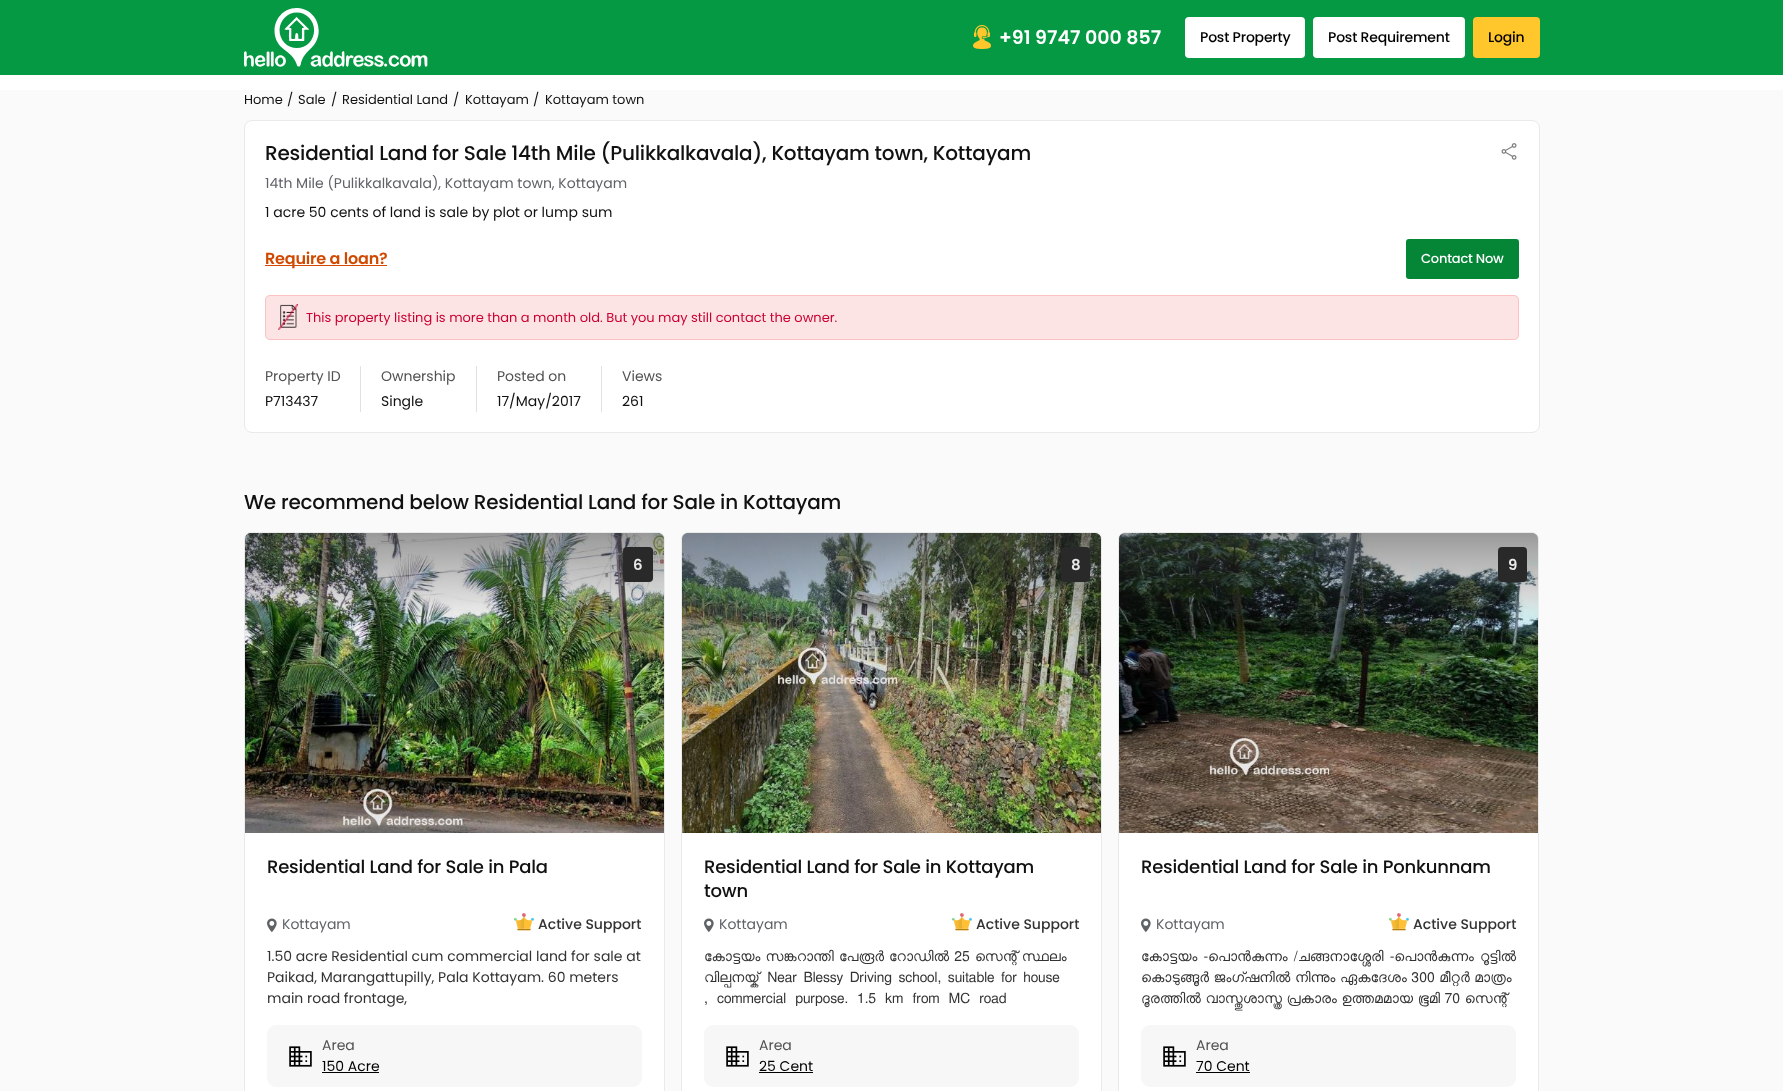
<svg xmlns="http://www.w3.org/2000/svg" width="1783" height="1091">
<defs>
<linearGradient id="g1" gradientUnits="userSpaceOnUse" x1="455" y1="633" x2="455" y2="533"><stop offset="0" stop-color="#333" stop-opacity="0"/><stop offset="1" stop-color="#333" stop-opacity="0.5"/></linearGradient>
<linearGradient id="g2" gradientUnits="userSpaceOnUse" x1="892" y1="633" x2="892" y2="533"><stop offset="0" stop-color="#333" stop-opacity="0"/><stop offset="1" stop-color="#333" stop-opacity="0.5"/></linearGradient>
<clipPath id="clip1"><rect x="704" y="946" width="375" height="65"/></clipPath>
<linearGradient id="g3" gradientUnits="userSpaceOnUse" x1="1329" y1="633" x2="1329" y2="533"><stop offset="0" stop-color="#333" stop-opacity="0"/><stop offset="1" stop-color="#333" stop-opacity="0.5"/></linearGradient>
<clipPath id="clip2"><rect x="1141" y="946" width="375" height="65"/></clipPath>
</defs>
<rect width="100%" height="100%" fill="#fff"/>
<rect width="1783" height="75" fill="#059943"/>
<image x="244" y="8" width="184" height="59" href="media/1.png"/>
<image x="973" y="25" width="18" height="24" href="media/2.png"/>
<text x="999" y="44" style="font-family:Poppins;font-size:19px;font-weight:600;fill:#fff">+91 9747 000 857</text>
<rect x="1185" y="17" width="120" height="41" rx="4" fill="#fff"/>
<text x="1200" y="42" style="font-family:Poppins;font-size:14px;font-weight:500;letter-spacing:-0.2px;fill:#000">Post Property</text>
<rect x="1313" y="17" width="152" height="41" rx="4" fill="#fff"/>
<text x="1328" y="42" style="font-family:Poppins;font-size:14px;font-weight:500;letter-spacing:-0.2px;fill:#000">Post Requirement</text>
<rect x="1473" y="17" width="67" height="41" rx="4" fill="#ffc72c"/>
<text x="1488" y="42" style="font-family:Poppins;font-size:14px;font-weight:500;letter-spacing:-0.2px;fill:#000">Login</text>
<rect y="90" width="1783" height="1001" fill="#fafafa"/>
<text x="244" y="104" style="font-family:Poppins;font-size:13px;fill:#111">Home</text>
<text x="287" y="104" style="font-family:Poppins;font-size:13px;fill:#111">/</text>
<text x="298" y="104" style="font-family:Poppins;font-size:13px;fill:#111">Sale</text>
<text x="331" y="104" style="font-family:Poppins;font-size:13px;fill:#111">/</text>
<text x="342" y="104" style="font-family:Poppins;font-size:13px;fill:#111">Residential Land</text>
<text x="453" y="104" style="font-family:Poppins;font-size:13px;fill:#111">/</text>
<text x="465" y="104" style="font-family:Poppins;font-size:13px;fill:#111">Kottayam</text>
<text x="533" y="104" style="font-family:Poppins;font-size:13px;fill:#111">/</text>
<text x="545" y="104" style="font-family:Poppins;font-size:13px;fill:#111">Kottayam town</text>
<rect x="244.5" y="120.5" width="1295" height="312" rx="7.5" fill="#fff" stroke="#eaeaea"/>
<text x="265" y="160" style="font-family:Poppins;font-size:20px;font-weight:500;letter-spacing:-0.2px;fill:#111">Residential Land for Sale 14th Mile (Pulikkalkavala), Kottayam town, Kottayam</text>
<text x="265" y="188" style="font-family:Poppins;font-size:14px;fill:#5f6368">14th Mile (Pulikkalkavala), Kottayam town, Kottayam</text>
<text x="265" y="217" style="font-family:Poppins;font-size:14px;fill:#111">1 acre 50 cents of land is sale by plot or lump sum</text>
<image x="1501" y="143" width="16" height="17" href="media/3.png"/>
<rect x="265" y="265" width="122" height="1" fill="#d14900"/>
<text x="265" y="264" style="font-family:Poppins;font-size:16px;font-weight:600;letter-spacing:-0.2px;fill:#d14900">Require a loan?</text>
<rect x="1406" y="239" width="113" height="40" rx="3" fill="#058536"/>
<text x="1421" y="263" style="font-family:Poppins;font-size:13px;font-weight:500;letter-spacing:-0.2px;fill:#fff">Contact Now</text>
<rect x="265" y="295" width="1254" height="45" rx="5" fill="#fce4e4"/>
<image x="278" y="304" width="20" height="26" href="media/4.png"/>
<rect x="265.5" y="295.5" width="1253" height="44" rx="4.5" fill="none" stroke="#fcc2c3"/>
<text x="306" y="322" style="font-family:Poppins;font-size:13px;fill:#c03">This property listing is more than a month old. But you may still contact the owner.</text>
<rect x="360" y="366" width="1" height="46" fill="#e1e1e1"/>
<text x="265" y="381" style="font-family:Poppins;font-size:14px;fill:#525252">Property ID</text>
<text x="265" y="406" style="font-family:Poppins;font-size:14px;fill:#111">P713437</text>
<rect x="476" y="366" width="1" height="46" fill="#e1e1e1"/>
<text x="381" y="381" style="font-family:Poppins;font-size:14px;fill:#525252">Ownership</text>
<text x="381" y="406" style="font-family:Poppins;font-size:14px;fill:#111">Single</text>
<rect x="601" y="366" width="1" height="46" fill="#e1e1e1"/>
<text x="497" y="381" style="font-family:Poppins;font-size:14px;fill:#525252">Posted on</text>
<text x="497" y="406" style="font-family:Poppins;font-size:14px;fill:#111">17/May/2017</text>
<text x="622" y="381" style="font-family:Poppins;font-size:14px;fill:#525252">Views</text>
<text x="622" y="406" style="font-family:Poppins;font-size:14px;fill:#111">261</text>
<text x="244" y="509" style="font-family:Poppins;font-size:20px;font-weight:500;letter-spacing:-0.2px;fill:#111">We recommend below Residential Land for Sale in Kottayam</text>
<rect x="244.5" y="532.5" width="420" height="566" rx="6.5" fill="#fff" stroke="#eaeaea"/>
<image x="245" y="533" width="419" height="300" href="media/5.png"/>
<path d="M251 533h407c3.5 0 6 2.5 6 6v94h-419v-94c0-3.5 2.5-6 6-6z" fill="url(#g1)"/>
<rect x="623" y="547" width="30" height="35" rx="4" fill="#292929"/>
<text x="633" y="570" style="font-family:Poppins;font-size:15px;font-weight:600;fill:#e9e9e9">6</text>
<text x="267" y="873" style="font-family:Poppins;font-size:18px;font-weight:500;letter-spacing:-0.2px;fill:#111">Residential Land for Sale in Pala</text>
<image x="267" y="918" width="10" height="14" href="media/6.png"/>
<text x="282" y="929" style="font-family:Poppins;font-size:14px;fill:#5f6368">Kottayam</text>
<image x="514" y="913" width="20" height="18" href="media/7.png"/>
<text x="538" y="929" style="font-family:Poppins;font-size:14px;font-weight:500;fill:#333">Active Support</text>
<text x="267" y="961" style="font-family:Poppins;font-size:14px;fill:#333">1.50 acre Residential cum commercial land for sale at</text>
<text x="267" y="982" style="font-family:Poppins;font-size:14px;fill:#333">Paikad, Marangattupilly, Pala Kottayam. 60 meters</text>
<text x="267" y="1003" style="font-family:Poppins;font-size:14px;fill:#333">main road frontage,</text>
<rect x="267" y="1025" width="375" height="62" rx="9" fill="#f7f7f7"/>
<image x="289" y="1046" width="23" height="21" href="media/8.png"/>
<text x="322" y="1050" style="font-family:Poppins;font-size:14px;fill:#525252">Area</text>
<text x="322" y="1071" style="font-family:Poppins;font-size:14px;fill:#000">150 Acre</text>
<rect x="322" y="1072" width="57" height="1" fill="#000"/>
<rect x="681.5" y="532.5" width="420" height="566" rx="6.5" fill="#fff" stroke="#eaeaea"/>
<image x="682" y="533" width="419" height="300" href="media/9.png"/>
<path d="M688 533h407c3.5 0 6 2.5 6 6v94h-419v-94c0-3.5 2.5-6 6-6z" fill="url(#g2)"/>
<rect x="1061" y="547" width="29" height="35" rx="4" fill="#292929"/>
<text x="1071" y="570" style="font-family:Poppins;font-size:15px;font-weight:600;fill:#e9e9e9">8</text>
<text x="704" y="873" style="font-family:Poppins;font-size:18px;font-weight:500;letter-spacing:-0.2px;fill:#111">Residential Land for Sale in Kottayam</text>
<text x="704" y="897" style="font-family:Poppins;font-size:18px;font-weight:500;letter-spacing:-0.2px;fill:#111">town</text>
<image x="704" y="918" width="10" height="14" href="media/6.png"/>
<text x="719" y="929" style="font-family:Poppins;font-size:14px;fill:#5f6368">Kottayam</text>
<image x="952" y="913" width="20" height="18" href="media/7.png"/>
<text x="976" y="929" style="font-family:Poppins;font-size:14px;font-weight:500;fill:#333">Active Support</text>
<text x="704" y="961" word-spacing="-0.5" style="font-family:FreeSans;font-size:14px;fill:#333">കോട്ടയം സങ്കറാന്തി പേരൂർ റോഡിൽ 25 സെന്റ് സ്ഥലം</text>
<g clip-path="url(#clip1)">
<text x="704" y="982" word-spacing="3" style="font-family:FreeSans;font-size:14px;fill:#333">വില്പനയ്ക് Near Blessy Driving school, suitable for house</text>
</g>
<text x="704" y="1003" word-spacing="5.5" style="font-family:FreeSans;font-size:14px;fill:#333">, commercial purpose. 1.5 km from MC road</text>
<rect x="704" y="1025" width="375" height="62" rx="9" fill="#f7f7f7"/>
<image x="726" y="1046" width="23" height="21" href="media/8.png"/>
<text x="759" y="1050" style="font-family:Poppins;font-size:14px;fill:#525252">Area</text>
<text x="759" y="1071" style="font-family:Poppins;font-size:14px;fill:#000">25 Cent</text>
<rect x="759" y="1072" width="54" height="1" fill="#000"/>
<rect x="1118.5" y="532.5" width="420" height="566" rx="6.5" fill="#fff" stroke="#eaeaea"/>
<image x="1119" y="533" width="419" height="300" href="media/10.png"/>
<path d="M1125 533h407c3.5 0 6 2.5 6 6v94h-419v-94c0-3.5 2.5-6 6-6z" fill="url(#g3)"/>
<rect x="1498" y="547" width="29" height="35" rx="4" fill="#292929"/>
<text x="1508" y="570" style="font-family:Poppins;font-size:15px;font-weight:600;fill:#e9e9e9">9</text>
<text x="1141" y="873" style="font-family:Poppins;font-size:18px;font-weight:500;letter-spacing:-0.2px;fill:#111">Residential Land for Sale in Ponkunnam</text>
<image x="1141" y="918" width="10" height="14" href="media/6.png"/>
<text x="1156" y="929" style="font-family:Poppins;font-size:14px;fill:#5f6368">Kottayam</text>
<image x="1389" y="913" width="20" height="18" href="media/7.png"/>
<text x="1413" y="929" style="font-family:Poppins;font-size:14px;font-weight:500;fill:#333">Active Support</text>
<text x="1141" y="961" word-spacing="0.5" style="font-family:FreeSans;font-size:14px;fill:#333">കോട്ടയം -പൊൻകുന്നം /ചങ്ങനാശ്ശേരി -പൊൻകുന്നം റൂട്ടിൽ</text>
<text x="1141" y="982" word-spacing="-1" style="font-family:FreeSans;font-size:14px;fill:#333">കൊടുങ്ങൂർ ജംഗ്ഷനിൽ നിന്നും ഏകദേശം 300 മീറ്റർ മാത്രം</text>
<g clip-path="url(#clip2)">
<text x="1141" y="1003" word-spacing="-1" style="font-family:FreeSans;font-size:14px;fill:#333">ദൂരത്തിൽ വാസ്തുശാസ്ത്ര പ്രകാരം ഉത്തമമായ ഭൂമി 70 സെന്റ്</text>
</g>
<rect x="1141" y="1025" width="375" height="62" rx="9" fill="#f7f7f7"/>
<image x="1163" y="1046" width="23" height="21" href="media/8.png"/>
<text x="1196" y="1050" style="font-family:Poppins;font-size:14px;fill:#525252">Area</text>
<text x="1196" y="1071" style="font-family:Poppins;font-size:14px;fill:#000">70 Cent</text>
<rect x="1196" y="1072" width="54" height="1" fill="#000"/>
</svg>
